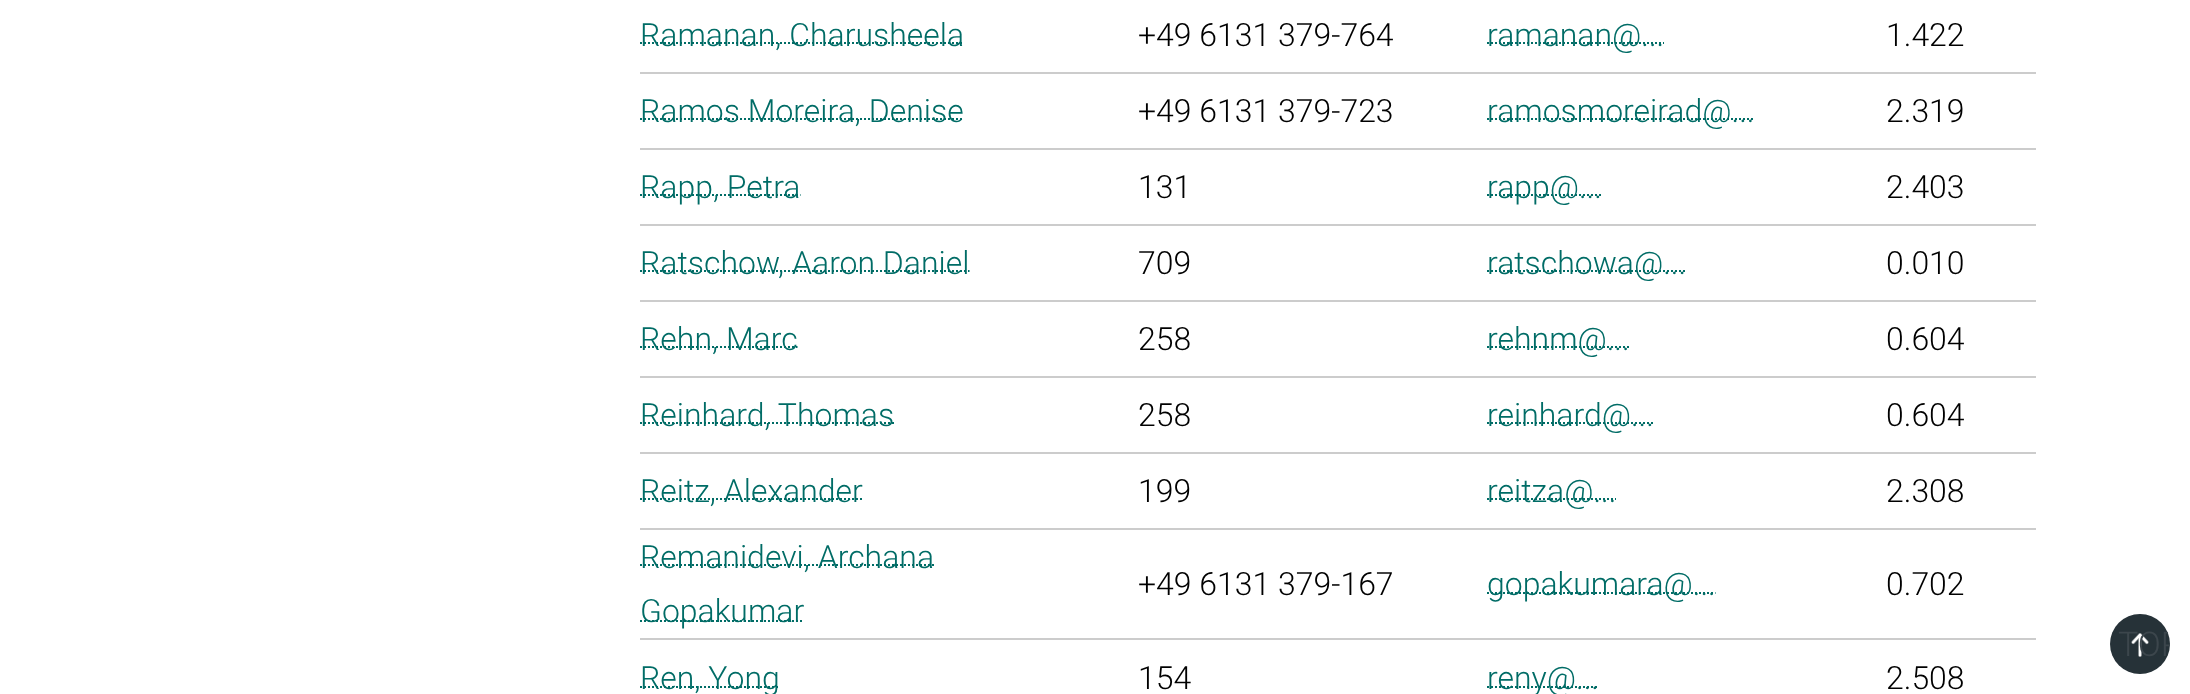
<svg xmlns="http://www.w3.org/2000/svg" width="2190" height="694">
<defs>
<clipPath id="clip1"><rect x="2110" y="614" width="60" height="60" rx="30"/></clipPath>
</defs>
<rect width="100%" height="100%" fill="#fff"/>
<rect x="640" y="72" width="1396" height="2" fill="#ccc"/>
<path d="M640 43h324" fill="none" stroke="#006c66" stroke-width="2" stroke-dasharray="2 2"/>
<text x="640" y="46" style="font-family:Roboto;font-size:32px;font-weight:300;fill:#006c66">Ramanan, Charusheela</text>
<text x="1138" y="46" style="font-family:Roboto;font-size:32px;font-weight:300;fill:#000">+49 6131 379-764</text>
<path d="M1487 43h177" fill="none" stroke="#006c66" stroke-width="2" stroke-dasharray="2 2"/>
<text x="1487" y="46" style="font-family:Roboto;font-size:32px;font-weight:300;fill:#006c66">ramanan@...</text>
<text x="1886" y="46" style="font-family:Roboto;font-size:32px;font-weight:300;fill:#000">1.422</text>
<rect x="640" y="148" width="1396" height="2" fill="#ccc"/>
<path d="M640 119h323.5" fill="none" stroke="#006c66" stroke-width="2" stroke-dasharray="2 2"/>
<text x="640" y="122" style="font-family:Roboto;font-size:32px;font-weight:300;fill:#006c66">Ramos Moreira, Denise</text>
<text x="1138" y="122" style="font-family:Roboto;font-size:32px;font-weight:300;fill:#000">+49 6131 379-723</text>
<path d="M1487 119h267.5" fill="none" stroke="#006c66" stroke-width="2" stroke-dasharray="2 2"/>
<text x="1487" y="122" style="font-family:Roboto;font-size:32px;font-weight:300;fill:#006c66">ramosmoreirad@...</text>
<text x="1886" y="122" style="font-family:Roboto;font-size:32px;font-weight:300;fill:#000">2.319</text>
<rect x="640" y="224" width="1396" height="2" fill="#ccc"/>
<path d="M640 195h160.5" fill="none" stroke="#006c66" stroke-width="2" stroke-dasharray="2 2"/>
<text x="640" y="198" style="font-family:Roboto;font-size:32px;font-weight:300;fill:#006c66">Rapp, Petra</text>
<text x="1138" y="198" style="font-family:Roboto;font-size:32px;font-weight:300;fill:#000">131</text>
<path d="M1487 195h115" fill="none" stroke="#006c66" stroke-width="2" stroke-dasharray="2 2"/>
<text x="1487" y="198" style="font-family:Roboto;font-size:32px;font-weight:300;fill:#006c66">rapp@...</text>
<text x="1886" y="198" style="font-family:Roboto;font-size:32px;font-weight:300;fill:#000">2.403</text>
<rect x="640" y="300" width="1396" height="2" fill="#ccc"/>
<path d="M640 271h329.5" fill="none" stroke="#006c66" stroke-width="2" stroke-dasharray="2 2"/>
<text x="640" y="274" style="font-family:Roboto;font-size:32px;font-weight:300;fill:#006c66">Ratschow, Aaron Daniel</text>
<text x="1138" y="274" style="font-family:Roboto;font-size:32px;font-weight:300;fill:#000">709</text>
<path d="M1487 271h199" fill="none" stroke="#006c66" stroke-width="2" stroke-dasharray="2 2"/>
<text x="1487" y="274" style="font-family:Roboto;font-size:32px;font-weight:300;fill:#006c66">ratschowa@...</text>
<text x="1886" y="274" style="font-family:Roboto;font-size:32px;font-weight:300;fill:#000">0.010</text>
<rect x="640" y="376" width="1396" height="2" fill="#ccc"/>
<path d="M640 347h157.5" fill="none" stroke="#006c66" stroke-width="2" stroke-dasharray="2 2"/>
<text x="640" y="350" style="font-family:Roboto;font-size:32px;font-weight:300;fill:#006c66">Rehn, Marc</text>
<text x="1138" y="350" style="font-family:Roboto;font-size:32px;font-weight:300;fill:#000">258</text>
<path d="M1487 347h142.5" fill="none" stroke="#006c66" stroke-width="2" stroke-dasharray="2 2"/>
<text x="1487" y="350" style="font-family:Roboto;font-size:32px;font-weight:300;fill:#006c66">rehnm@...</text>
<text x="1886" y="350" style="font-family:Roboto;font-size:32px;font-weight:300;fill:#000">0.604</text>
<rect x="640" y="452" width="1396" height="2" fill="#ccc"/>
<path d="M640 423h254" fill="none" stroke="#006c66" stroke-width="2" stroke-dasharray="2 2"/>
<text x="640" y="426" style="font-family:Roboto;font-size:32px;font-weight:300;fill:#006c66">Reinhard, Thomas</text>
<text x="1138" y="426" style="font-family:Roboto;font-size:32px;font-weight:300;fill:#000">258</text>
<path d="M1487 423h167" fill="none" stroke="#006c66" stroke-width="2" stroke-dasharray="2 2"/>
<text x="1487" y="426" style="font-family:Roboto;font-size:32px;font-weight:300;fill:#006c66">reinhard@...</text>
<text x="1886" y="426" style="font-family:Roboto;font-size:32px;font-weight:300;fill:#000">0.604</text>
<rect x="640" y="528" width="1396" height="2" fill="#ccc"/>
<path d="M640 499h223" fill="none" stroke="#006c66" stroke-width="2" stroke-dasharray="2 2"/>
<text x="640" y="502" style="font-family:Roboto;font-size:32px;font-weight:300;fill:#006c66">Reitz, Alexander</text>
<text x="1138" y="502" style="font-family:Roboto;font-size:32px;font-weight:300;fill:#000">199</text>
<path d="M1487 499h129" fill="none" stroke="#006c66" stroke-width="2" stroke-dasharray="2 2"/>
<text x="1487" y="502" style="font-family:Roboto;font-size:32px;font-weight:300;fill:#006c66">reitza@...</text>
<text x="1886" y="502" style="font-family:Roboto;font-size:32px;font-weight:300;fill:#000">2.308</text>
<rect x="640" y="638" width="1396" height="2" fill="#ccc"/>
<path d="M640 565h294" fill="none" stroke="#006c66" stroke-width="2" stroke-dasharray="2 2"/>
<text x="640" y="568" style="font-family:Roboto;font-size:32px;font-weight:300;fill:#006c66">Remanidevi, Archana</text>
<path d="M640 621h164" fill="none" stroke="#006c66" stroke-width="2" stroke-dasharray="2 2"/>
<text x="640" y="622" style="font-family:Roboto;font-size:32px;font-weight:300;fill:#006c66">Gopakumar</text>
<text x="1138" y="595" style="font-family:Roboto;font-size:32px;font-weight:300;fill:#000">+49 6131 379-167</text>
<path d="M1487 593h228.5" fill="none" stroke="#006c66" stroke-width="2" stroke-dasharray="2 2"/>
<text x="1487" y="595" style="font-family:Roboto;font-size:32px;font-weight:300;fill:#006c66">gopakumara@...</text>
<text x="1886" y="595" style="font-family:Roboto;font-size:32px;font-weight:300;fill:#000">0.702</text>
<path d="M640 687h139.5" fill="none" stroke="#006c66" stroke-width="2" stroke-dasharray="2 2"/>
<text x="640" y="689" style="font-family:Roboto;font-size:32px;font-weight:300;fill:#006c66">Ren, Yong</text>
<text x="1138" y="689" style="font-family:Roboto;font-size:32px;font-weight:300;fill:#000">154</text>
<path d="M1487 687h112" fill="none" stroke="#006c66" stroke-width="2" stroke-dasharray="2 2"/>
<text x="1487" y="689" style="font-family:Roboto;font-size:32px;font-weight:300;fill:#006c66">reny@...</text>
<text x="1886" y="689" style="font-family:Roboto;font-size:32px;font-weight:300;fill:#000">2.508</text>
<circle cx="2140" cy="644" r="30" fill="#263238"/>
<image x="2131" y="633" width="18" height="24" href="media/1.png"/>
<g clip-path="url(#clip1)">
<text x="2118" y="656" style="font-family:Roboto;font-size:34px;font-weight:300;fill:#3c464c">TOP</text>
</g>
</svg>
